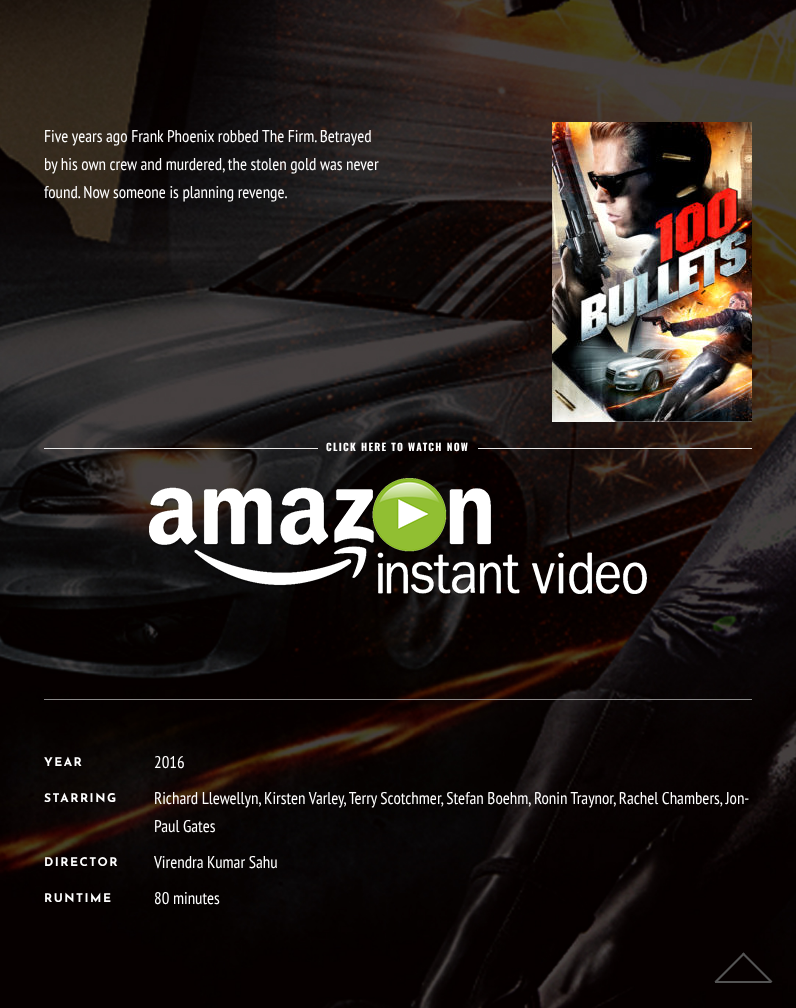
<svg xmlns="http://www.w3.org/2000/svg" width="796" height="1008">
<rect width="100%" height="100%" fill="#fff"/>
<image x="0" y="0" width="796" height="1008" href="media/1.png"/>
<text x="44" y="142" style="font-family:PT Sans Narrow;font-size:17px;fill:#fff">Five years ago Frank Phoenix robbed The Firm. Betrayed</text>
<text x="44" y="170" style="font-family:PT Sans Narrow;font-size:17px;fill:#fff">by his own crew and murdered, the stolen gold was never</text>
<text x="44" y="198" style="font-family:PT Sans Narrow;font-size:17px;fill:#fff">found. Now someone is planning revenge.</text>
<image x="552" y="122" width="200" height="300" href="media/2.png"/>
<rect x="44" y="448" width="274" height="1" fill="#ebebeb"/>
<text x="326" y="451" style="font-family:Oswald;font-size:10.1px;font-weight:bold;letter-spacing:1.3px;fill:#fff">CLICK HERE TO WATCH NOW</text>
<rect x="478" y="448" width="274" height="1" fill="#ebebeb"/>
<image x="149" y="478" width="499" height="118" href="media/3.png"/>
<rect x="44" y="699" width="708" height="1" fill="#aaaaaacc"/>
<text x="44" y="766" style="font-family:Josefin Sans;font-size:12px;font-weight:100;letter-spacing:1.5px;fill:#fff">YEAR</text>
<text x="154" y="768" style="font-family:PT Sans Narrow;font-size:17px;fill:#fff">2016</text>
<text x="44" y="802" style="font-family:Josefin Sans;font-size:12px;font-weight:100;letter-spacing:1.5px;fill:#fff">STARRING</text>
<text x="154" y="804" style="font-family:PT Sans Narrow;font-size:17px;fill:#fff">Richard Llewellyn, Kirsten Varley, Terry Scotchmer, Stefan Boehm, Ronin Traynor, Rachel Chambers, Jon-</text>
<text x="154" y="832" style="font-family:PT Sans Narrow;font-size:17px;fill:#fff">Paul Gates</text>
<text x="44" y="866" style="font-family:Josefin Sans;font-size:12px;font-weight:100;letter-spacing:1.5px;fill:#fff">DIRECTOR</text>
<text x="154" y="868" style="font-family:PT Sans Narrow;font-size:17px;fill:#fff">Virendra Kumar Sahu</text>
<text x="44" y="902" style="font-family:Josefin Sans;font-size:12px;font-weight:100;letter-spacing:1.5px;fill:#fff">RUNTIME</text>
<text x="154" y="904" style="font-family:PT Sans Narrow;font-size:17px;fill:#fff">80 minutes</text>
<rect x="715" y="981" width="56" height="2" fill="#545454"/>
<path d="M743.5 952.5l29 29l-1.5 1.5l-29-29z" fill="#545454"/>
<path d="M743.5 952.5l1.5 1.5l-29 29l-1.5-1.5z" fill="#545454"/>
</svg>
